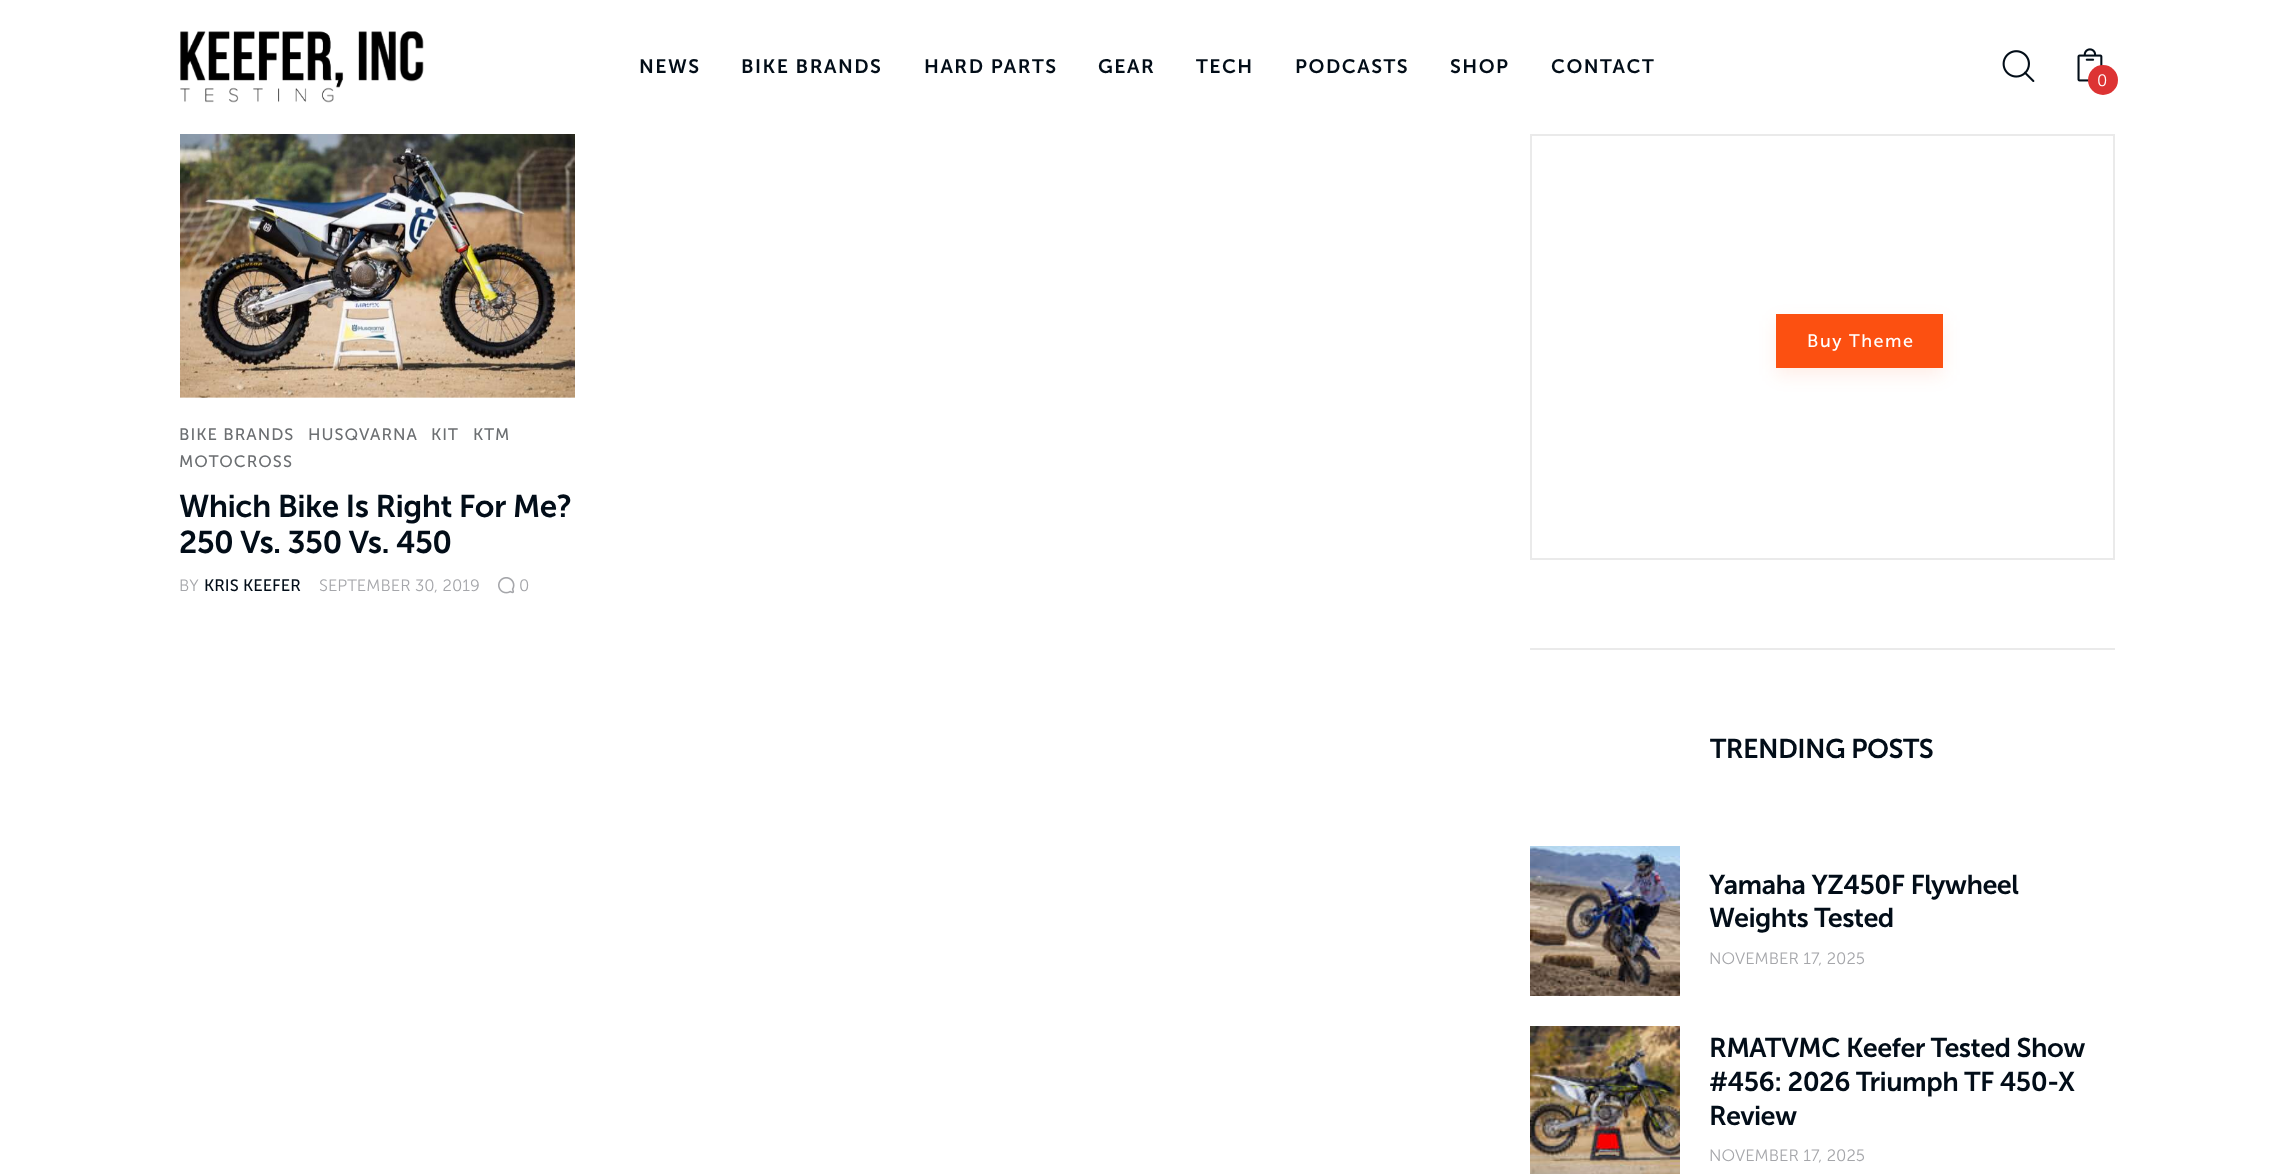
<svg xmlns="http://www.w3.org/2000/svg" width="2293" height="1174">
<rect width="100%" height="100%" fill="#fff"/>
<image x="180" y="31" width="244" height="72" href="media/1.png"/>
<text x="639" y="73" style="font-family:'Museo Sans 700';font-size:19.5px;font-weight:600;letter-spacing:1.5px;fill:#020d18">NEWS</text>
<text x="741" y="73" style="font-family:'Museo Sans 700';font-size:19.5px;font-weight:600;letter-spacing:1.5px;fill:#020d18">BIKE BRANDS</text>
<text x="924" y="73" style="font-family:'Museo Sans 700';font-size:19.5px;font-weight:600;letter-spacing:1.5px;fill:#020d18">HARD PARTS</text>
<text x="1098" y="73" style="font-family:'Museo Sans 700';font-size:19.5px;font-weight:600;letter-spacing:1.5px;fill:#020d18">GEAR</text>
<text x="1196" y="73" style="font-family:'Museo Sans 700';font-size:19.5px;font-weight:600;letter-spacing:1.5px;fill:#020d18">TECH</text>
<text x="1295" y="73" style="font-family:'Museo Sans 700';font-size:19.5px;font-weight:600;letter-spacing:1.5px;fill:#020d18">PODCASTS</text>
<text x="1450" y="73" style="font-family:'Museo Sans 700';font-size:19.5px;font-weight:600;letter-spacing:1.5px;fill:#020d18">SHOP</text>
<text x="1551" y="73" style="font-family:'Museo Sans 700';font-size:19.5px;font-weight:600;letter-spacing:1.5px;fill:#020d18">CONTACT</text>
<image x="2002" y="50" width="33" height="32" href="media/2.png"/>
<image x="2077" y="48" width="26" height="34" href="media/3.png"/>
<circle cx="2103" cy="80" r="15" fill="#d33"/>
<text x="2097" y="86" style="font-family:'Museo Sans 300';font-size:16.5px;font-weight:300;fill:#fff">0</text>
<image x="180" y="134" width="395" height="264" href="media/4.png"/>
<text x="179" y="440" style="font-family:'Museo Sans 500';font-size:16.5px;letter-spacing:1px;fill:#6c6f72">BIKE BRANDS</text>
<text x="308" y="440" style="font-family:'Museo Sans 500';font-size:16.5px;letter-spacing:1px;fill:#6c6f72">HUSQVARNA</text>
<text x="431" y="440" style="font-family:'Museo Sans 500';font-size:16.5px;letter-spacing:1px;fill:#6c6f72">KIT</text>
<text x="473" y="440" style="font-family:'Museo Sans 500';font-size:16.5px;letter-spacing:1px;fill:#6c6f72">KTM</text>
<text x="179" y="467" style="font-family:'Museo Sans 500';font-size:16.5px;letter-spacing:1px;fill:#6c6f72">MOTOCROSS</text>
<text x="179" y="517" style="font-family:'Museo Sans 700';font-size:31.5px;font-weight:600;letter-spacing:-0.6px;fill:#020d18">Which Bike Is Right For Me?</text>
<text x="179" y="553" style="font-family:'Museo Sans 700';font-size:31.5px;font-weight:600;letter-spacing:-0.6px;fill:#020d18">250 Vs. 350 Vs. 450</text>
<text x="179" y="591" style="font-family:'Museo Sans 300';font-size:16.5px;font-weight:300;fill:#a5a6aa">BY</text>
<text x="204" y="591" style="font-family:'Museo Sans 500';font-size:16.5px;fill:#020d18">KRIS KEEFER</text>
<text x="319" y="591" style="font-family:'Museo Sans 300';font-size:16.5px;font-weight:300;fill:#a5a6aa">SEPTEMBER 30, 2019</text>
<image x="498" y="577" width="17" height="17" href="media/5.png"/>
<text x="519" y="591" style="font-family:'Museo Sans 300';font-size:16.5px;font-weight:300;fill:#a5a6aa">0</text>
<rect x="1531" y="135" width="583" height="424" fill="none" stroke="#eaeaea" stroke-width="2"/>
<rect x="1776" y="321" width="167" height="54" fill="#fc50111a" filter="blur(9px)"/>
<rect x="1776" y="314" width="167" height="54" fill="#fc5011"/>
<text x="1807" y="347" style="font-family:'Museo Sans 500';font-size:18px;letter-spacing:1.5px;fill:#fff">Buy Theme</text>
<rect x="1530" y="648" width="585" height="2" fill="#eaeaea"/>
<text x="1710" y="758" style="font-family:'Museo Sans 700';font-size:27px;font-weight:600;letter-spacing:-0.55px;fill:#020d18">TRENDING POSTS</text>
<image x="1530" y="846" width="150" height="150" href="media/6.png"/>
<text x="1709" y="894" style="font-family:'Museo Sans 700';font-size:27px;font-weight:600;letter-spacing:-0.55px;fill:#020d18">Yamaha YZ450F Flywheel</text>
<text x="1709" y="927" style="font-family:'Museo Sans 700';font-size:27px;font-weight:600;letter-spacing:-0.55px;fill:#020d18">Weights Tested</text>
<text x="1709" y="964" style="font-family:'Museo Sans 300';font-size:16.5px;font-weight:300;fill:#a5a6aa">NOVEMBER 17, 2025</text>
<image x="1530" y="1026" width="150" height="148" href="media/7.png"/>
<text x="1709" y="1057" style="font-family:'Museo Sans 700';font-size:27px;font-weight:600;letter-spacing:-0.55px;fill:#020d18">RMATVMC Keefer Tested Show</text>
<text x="1709" y="1091" style="font-family:'Museo Sans 700';font-size:27px;font-weight:600;letter-spacing:-0.55px;fill:#020d18">#456: 2026 Triumph TF 450-X</text>
<text x="1709" y="1125" style="font-family:'Museo Sans 700';font-size:27px;font-weight:600;letter-spacing:-0.55px;fill:#020d18">Review</text>
<text x="1709" y="1161" style="font-family:'Museo Sans 300';font-size:16.5px;font-weight:300;fill:#a5a6aa">NOVEMBER 17, 2025</text>
</svg>
